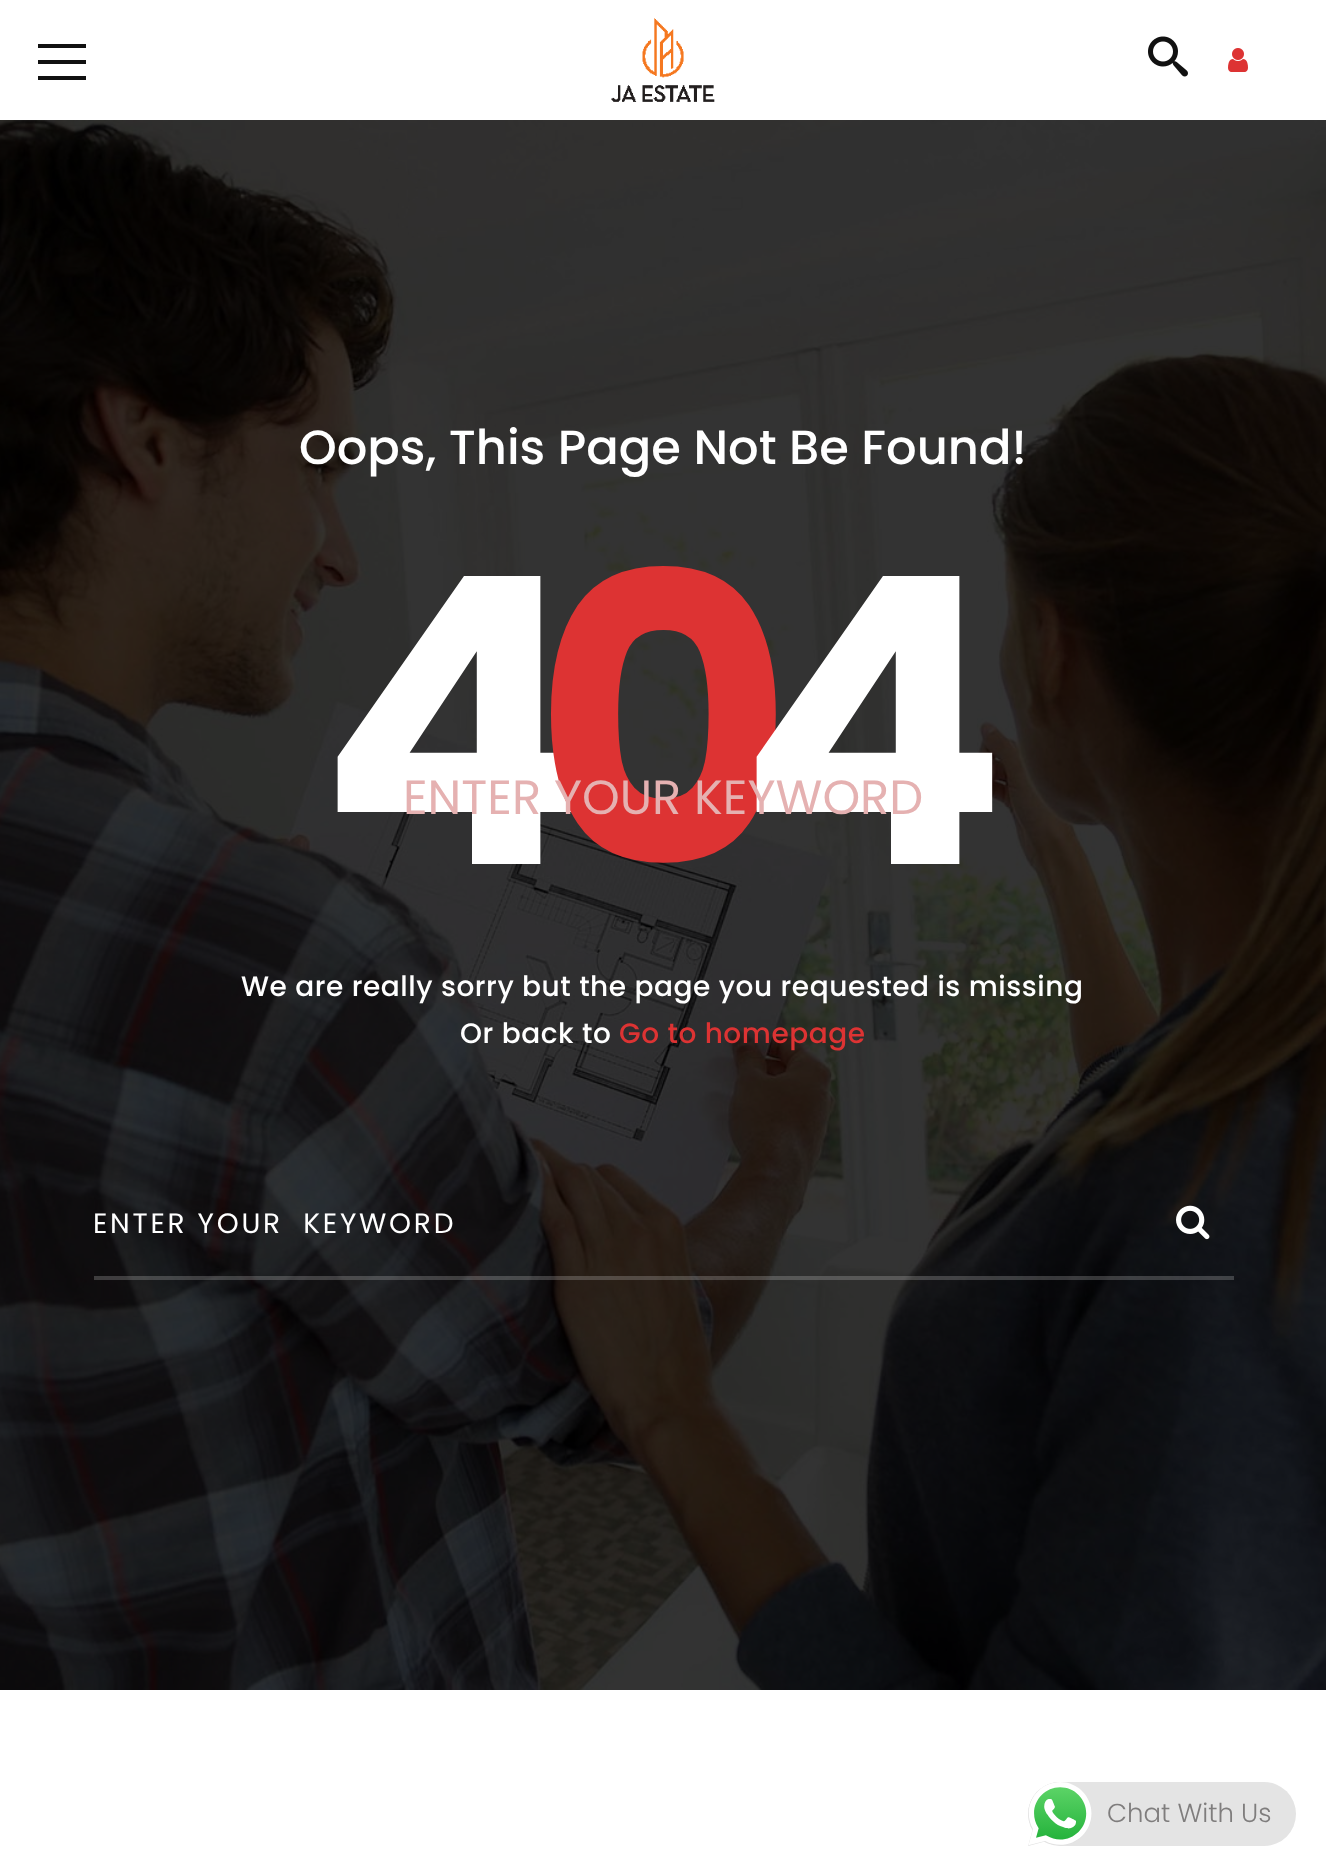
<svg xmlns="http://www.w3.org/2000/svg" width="1326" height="1876">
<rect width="100%" height="100%" fill="#fff"/>
<rect x="38" y="44" width="48" height="4" fill="#111"/>
<rect x="38" y="60" width="48" height="4" fill="#111"/>
<rect x="38" y="76" width="48" height="4" fill="#111"/>
<image x="611" y="18" width="104" height="84" href="media/1.png"/>
<image x="1148" y="36" width="40" height="41" href="media/2.png"/>
<image x="1228" y="48" width="20" height="24" href="media/3.png"/>
<image x="0" y="120" width="1326" height="1570" href="media/4.png"/>
<text x="299" y="464" style="font-family:Poppins;font-size:48px;font-weight:500;fill:#fff">Oops, This Page Not Be Found!</text>
<text x="318" y="864" style="font-family:Poppins;font-size:400px;font-weight:bold;letter-spacing:-56px;fill:#fff">4</text>
<text x="533" y="864" style="font-family:Poppins;font-size:400px;font-weight:bold;letter-spacing:-56px;fill:#d33">0</text>
<text x="737" y="864" style="font-family:Poppins;font-size:400px;font-weight:bold;letter-spacing:-56px;fill:#fff">4</text>
<text x="241" y="996" style="font-family:Poppins;font-size:28px;font-weight:500;letter-spacing:0.55px;fill:#fff">We are really sorry but the page you requested is missing</text>
<text x="460" y="1043" style="font-family:Poppins;font-size:28px;font-weight:500;letter-spacing:0.55px;fill:#fff">Or back to</text>
<text x="619" y="1043" style="font-family:Poppins;font-size:28px;font-weight:500;letter-spacing:0.55px;fill:#d33">Go to homepage</text>
<rect x="94" y="1276" width="1140" height="4" fill="#ffffff33"/>
<text x="93" y="1233" style="font-family:Poppins;font-size:28px;letter-spacing:2.75px;fill:#fff" xml:space="preserve">ENTER YOUR  KEYWORD</text>
<image x="1176" y="1205" width="34" height="35" href="media/5.png"/>
<text x="403" y="814" style="font-family:Poppins;font-size:48px;fill:#e5b1b1">ENTER YOUR KEYWORD</text>
<rect x="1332" y="894" width="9" height="92" fill="#777" filter="blur(5px)"/>
<rect x="1028" y="1782" width="268" height="64" rx="32" fill="#e4e4e4"/>
<image x="1028" y="1782" width="64" height="64" href="media/6.png"/>
<text x="1107" y="1822" style="font-family:Poppins;font-size:26px;font-weight:300;fill:#7f7d7d">Chat With Us</text>
</svg>
